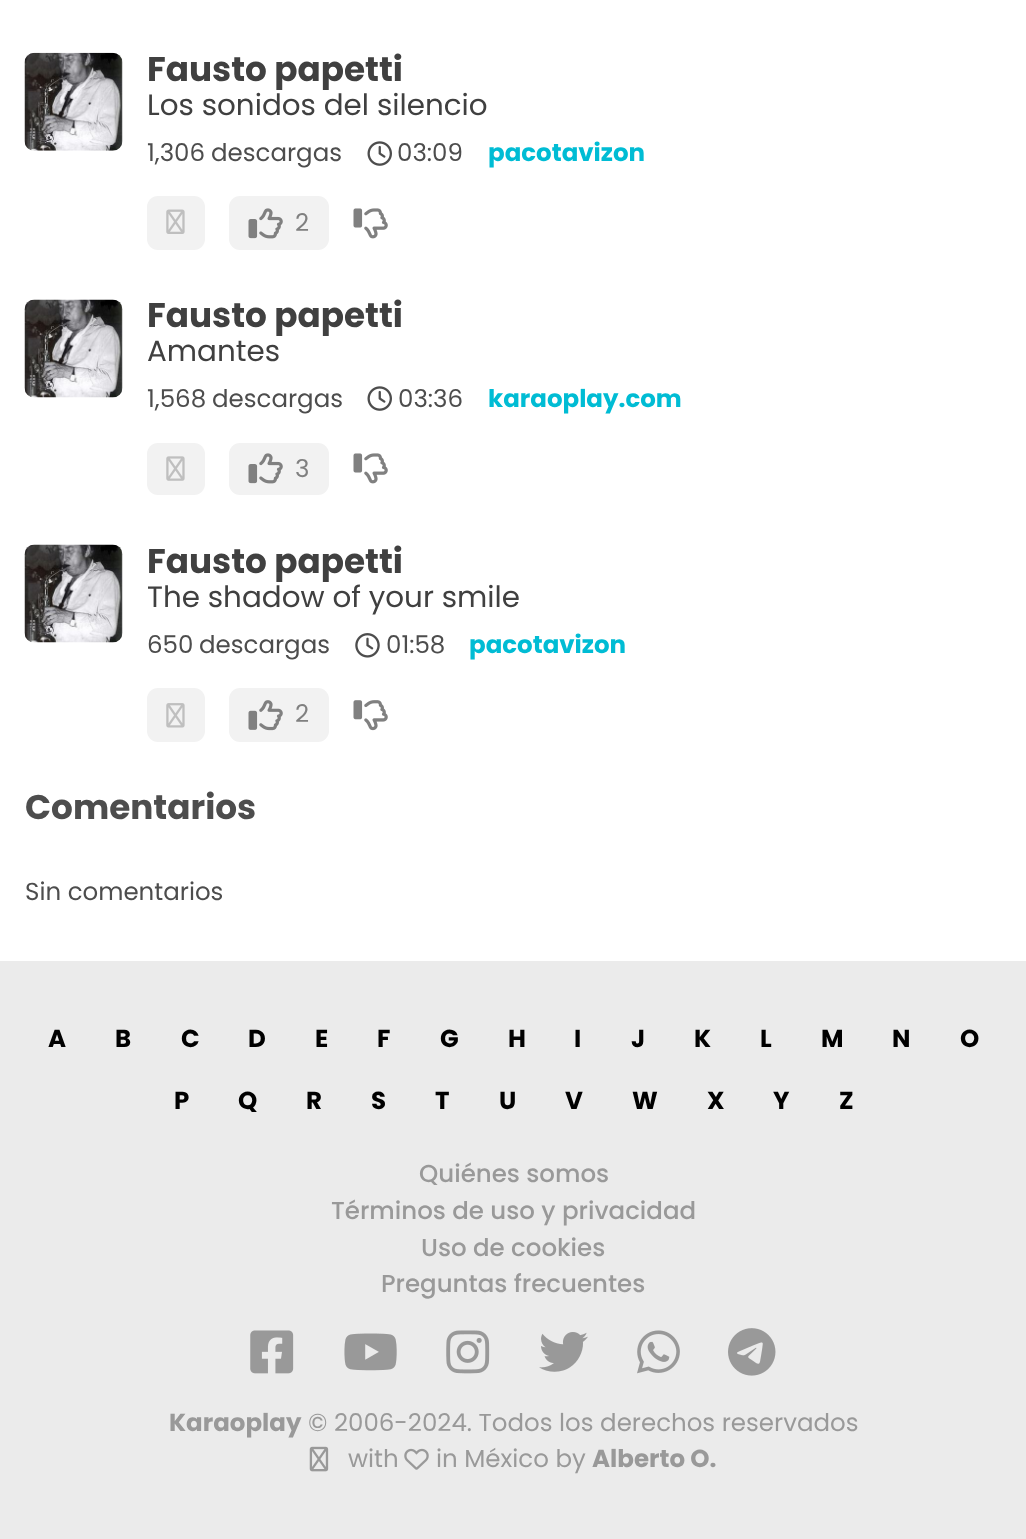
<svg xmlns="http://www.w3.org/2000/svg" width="1026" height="1539">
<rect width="100%" height="100%" fill="#fff"/>
<image x="24" y="52" width="99" height="99" href="media/1.png"/>
<text x="147" y="81" style="font-family:Poppins;font-size:34.25px;font-weight:bold;fill:#404040">Fausto papetti</text>
<text x="147" y="115" style="font-family:Poppins;font-size:29.4px;fill:#404040">Los sonidos del silencio</text>
<text x="147" y="161" style="font-family:Poppins;font-size:24.5px;fill:#4d4d4d">1,306</text>
<text x="211" y="161" style="font-family:Poppins;font-size:24.5px;fill:#4d4d4d">descargas</text>
<image x="367" y="141" width="25" height="25" href="media/2.png"/>
<text x="397" y="161" style="font-family:Poppins;font-size:24.5px;fill:#4d4d4d">03:09</text>
<text x="488" y="161" style="font-family:Poppins;font-size:24.5px;font-weight:bold;fill:#00bcd4">pacotavizon</text>
<rect x="147" y="196" width="58" height="54" rx="11" fill="#f2f2f2"/>
<image x="166" y="209" width="19" height="25" href="media/3.png"/>
<rect x="229" y="196" width="100" height="54" rx="11" fill="#f2f2f2"/>
<image x="248" y="208" width="35" height="31" href="media/4.png"/>
<text x="295" y="231" style="font-family:Poppins;font-size:24.5px;fill:#808080">2</text>
<image x="353" y="208" width="35" height="31" href="media/5.png"/>
<image x="24" y="299" width="99" height="99" href="media/6.png"/>
<text x="147" y="327" style="font-family:Poppins;font-size:34.25px;font-weight:bold;fill:#404040">Fausto papetti</text>
<text x="147" y="361" style="font-family:Poppins;font-size:29.4px;fill:#404040">Amantes</text>
<text x="147" y="407" style="font-family:Poppins;font-size:24.5px;fill:#4d4d4d">1,568</text>
<text x="212" y="407" style="font-family:Poppins;font-size:24.5px;fill:#4d4d4d">descargas</text>
<image x="367" y="386" width="25" height="25" href="media/2.png"/>
<text x="398" y="407" style="font-family:Poppins;font-size:24.5px;fill:#4d4d4d">03:36</text>
<text x="488" y="407" style="font-family:Poppins;font-size:24.5px;font-weight:bold;fill:#00bcd4">karaoplay.com</text>
<rect x="147" y="443" width="58" height="52" rx="11" fill="#f2f2f2"/>
<image x="166" y="456" width="19" height="25" href="media/7.png"/>
<rect x="229" y="443" width="100" height="52" rx="11" fill="#f2f2f2"/>
<image x="248" y="453" width="35" height="31" href="media/4.png"/>
<text x="295" y="477" style="font-family:Poppins;font-size:24.5px;fill:#808080">3</text>
<image x="353" y="453" width="35" height="31" href="media/5.png"/>
<image x="24" y="544" width="99" height="99" href="media/6.png"/>
<text x="147" y="573" style="font-family:Poppins;font-size:34.25px;font-weight:bold;fill:#404040">Fausto papetti</text>
<text x="147" y="607" style="font-family:Poppins;font-size:29.4px;fill:#404040">The shadow of your smile</text>
<text x="147" y="653" style="font-family:Poppins;font-size:24.5px;fill:#4d4d4d">650</text>
<text x="199" y="653" style="font-family:Poppins;font-size:24.5px;fill:#4d4d4d">descargas</text>
<image x="355" y="633" width="25" height="25" href="media/8.png"/>
<text x="386" y="653" style="font-family:Poppins;font-size:24.5px;fill:#4d4d4d">01:58</text>
<text x="469" y="653" style="font-family:Poppins;font-size:24.5px;font-weight:bold;fill:#00bcd4">pacotavizon</text>
<rect x="147" y="688" width="58" height="54" rx="11" fill="#f2f2f2"/>
<image x="166" y="703" width="19" height="25" href="media/9.png"/>
<rect x="229" y="688" width="100" height="54" rx="11" fill="#f2f2f2"/>
<image x="248" y="700" width="35" height="31" href="media/10.png"/>
<text x="295" y="722" style="font-family:Poppins;font-size:24.5px;fill:#808080">2</text>
<image x="353" y="700" width="35" height="31" href="media/11.png"/>
<text x="25" y="819" style="font-family:Poppins;font-size:34.25px;font-weight:bold;fill:#4d4d4d">Comentarios</text>
<text x="25" y="900" style="font-family:Poppins;font-size:24.5px;fill:#4d4d4d">Sin comentarios</text>
<rect y="961" width="1026" height="578" fill="#ebebeb"/>
<text x="48" y="1047" style="font-family:Poppins;font-size:24.5px;font-weight:bold;fill:#000">A</text>
<text x="115" y="1047" style="font-family:Poppins;font-size:24.5px;font-weight:bold;fill:#000">B</text>
<text x="181" y="1047" style="font-family:Poppins;font-size:24.5px;font-weight:bold;fill:#000">C</text>
<text x="248" y="1047" style="font-family:Poppins;font-size:24.5px;font-weight:bold;fill:#000">D</text>
<text x="315" y="1047" style="font-family:Poppins;font-size:24.5px;font-weight:bold;fill:#000">E</text>
<text x="377" y="1047" style="font-family:Poppins;font-size:24.5px;font-weight:bold;fill:#000">F</text>
<text x="440" y="1047" style="font-family:Poppins;font-size:24.5px;font-weight:bold;fill:#000">G</text>
<text x="508" y="1047" style="font-family:Poppins;font-size:24.5px;font-weight:bold;fill:#000">H</text>
<text x="574" y="1047" style="font-family:Poppins;font-size:24.5px;font-weight:bold;fill:#000">I</text>
<text x="631" y="1047" style="font-family:Poppins;font-size:24.5px;font-weight:bold;fill:#000">J</text>
<text x="694" y="1047" style="font-family:Poppins;font-size:24.5px;font-weight:bold;fill:#000">K</text>
<text x="760" y="1047" style="font-family:Poppins;font-size:24.5px;font-weight:bold;fill:#000">L</text>
<text x="821" y="1047" style="font-family:Poppins;font-size:24.5px;font-weight:bold;fill:#000">M</text>
<text x="892" y="1047" style="font-family:Poppins;font-size:24.5px;font-weight:bold;fill:#000">N</text>
<text x="960" y="1047" style="font-family:Poppins;font-size:24.5px;font-weight:bold;fill:#000">O</text>
<text x="174" y="1109" style="font-family:Poppins;font-size:24.5px;font-weight:bold;fill:#000">P</text>
<text x="238" y="1109" style="font-family:Poppins;font-size:24.5px;font-weight:bold;fill:#000">Q</text>
<text x="306" y="1109" style="font-family:Poppins;font-size:24.5px;font-weight:bold;fill:#000">R</text>
<text x="371" y="1109" style="font-family:Poppins;font-size:24.5px;font-weight:bold;fill:#000">S</text>
<text x="435" y="1109" style="font-family:Poppins;font-size:24.5px;font-weight:bold;fill:#000">T</text>
<text x="499" y="1109" style="font-family:Poppins;font-size:24.5px;font-weight:bold;fill:#000">U</text>
<text x="565" y="1109" style="font-family:Poppins;font-size:24.5px;font-weight:bold;fill:#000">V</text>
<text x="632" y="1109" style="font-family:Poppins;font-size:24.5px;font-weight:bold;fill:#000">W</text>
<text x="707" y="1109" style="font-family:Poppins;font-size:24.5px;font-weight:bold;fill:#000">X</text>
<text x="773" y="1109" style="font-family:Poppins;font-size:24.5px;font-weight:bold;fill:#000">Y</text>
<text x="839" y="1109" style="font-family:Poppins;font-size:24.5px;font-weight:bold;fill:#000">Z</text>
<text x="419" y="1182" style="font-family:Poppins;font-size:24.5px;font-weight:500;fill:#999">Quiénes somos</text>
<text x="331" y="1219" style="font-family:Poppins;font-size:24.5px;font-weight:500;fill:#999">Términos de uso y privacidad</text>
<text x="421" y="1256" style="font-family:Poppins;font-size:24.5px;font-weight:500;fill:#999">Uso de cookies</text>
<text x="381" y="1292" style="font-family:Poppins;font-size:24.5px;font-weight:500;fill:#999">Preguntas frecuentes</text>
<image x="250" y="1330" width="44" height="44" href="media/12.png"/>
<image x="344" y="1333" width="53" height="38" href="media/13.png"/>
<image x="446" y="1330" width="44" height="44" href="media/14.png"/>
<image x="539" y="1332" width="49" height="40" href="media/15.png"/>
<image x="637" y="1330" width="43" height="44" href="media/16.png"/>
<image x="728" y="1328" width="48" height="48" href="media/17.png"/>
<text x="169" y="1431" style="font-family:Poppins;font-size:24.5px;font-weight:bold;fill:#999">Karaoplay</text>
<text x="308" y="1431" style="font-family:Poppins;font-size:24.5px;fill:#999">© 2006-2024. Todos los derechos reservados</text>
<image x="309" y="1446" width="20" height="26" href="media/18.png"/>
<text x="348" y="1467" style="font-family:Poppins;font-size:24.5px;fill:#999">with</text>
<image x="404" y="1448" width="25" height="22" href="media/19.png"/>
<text x="436" y="1467" style="font-family:Poppins;font-size:24.5px;fill:#999">in México by</text>
<text x="592" y="1467" style="font-family:Poppins;font-size:24.5px;font-weight:bold;fill:#999">Alberto O.</text>
</svg>
